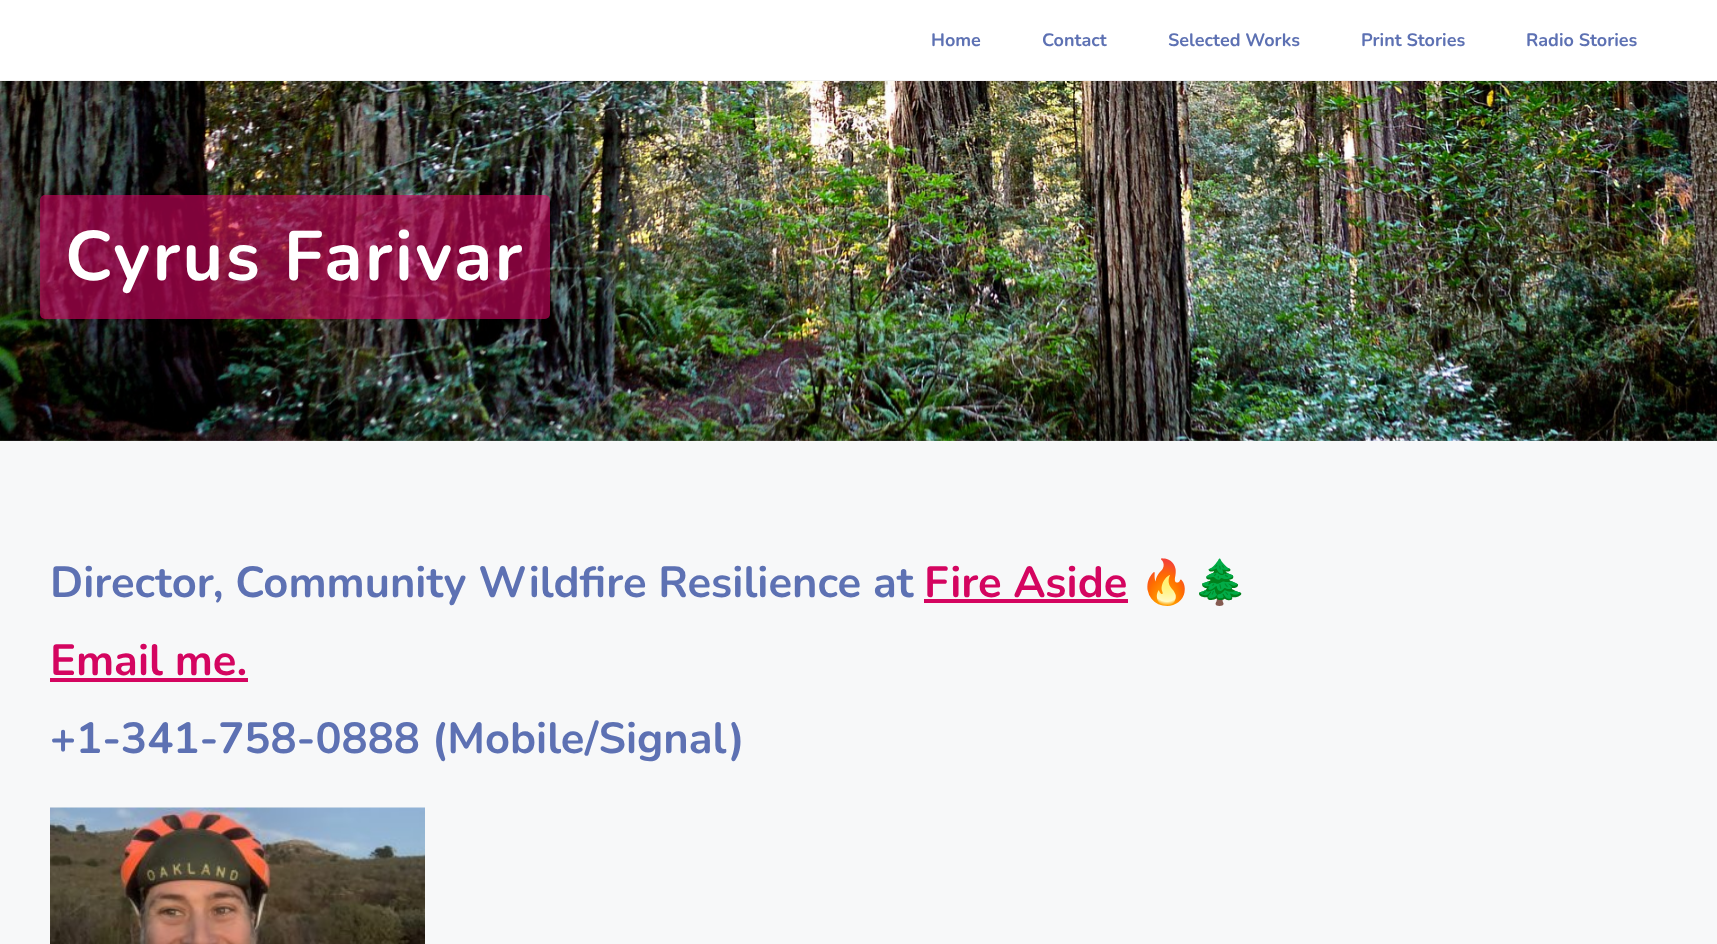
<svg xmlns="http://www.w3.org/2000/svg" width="1717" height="944">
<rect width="100%" height="100%" fill="#fff"/>
<rect y="80" width="1717" height="1" fill="#f2f2f2"/>
<text x="931" y="46" style="font-family:Nunito;font-size:18px;font-weight:bold;fill:#5d71b3">Home</text>
<text x="1042" y="46" style="font-family:Nunito;font-size:18px;font-weight:bold;fill:#5d71b3">Contact</text>
<text x="1168" y="46" style="font-family:Nunito;font-size:18px;font-weight:bold;fill:#5d71b3">Selected Works</text>
<text x="1361" y="46" style="font-family:Nunito;font-size:18px;font-weight:bold;fill:#5d71b3">Print Stories</text>
<text x="1526" y="46" style="font-family:Nunito;font-size:18px;font-weight:bold;fill:#5d71b3">Radio Stories</text>
<image x="0" y="81" width="1717" height="360" href="media/1.png"/>
<rect x="40" y="195" width="510" height="124" rx="5" fill="#d4056099"/>
<text x="65" y="280" style="font-family:Nunito;font-size:70px;font-weight:bold;letter-spacing:2.5px;fill:#fff">Cyrus Farivar</text>
<rect y="441" width="1717" height="503" fill="#f7f8f9"/>
<text x="50" y="597" style="font-family:Nunito;font-size:43.5px;font-weight:bold;fill:#5d71b3">Director, Community Wildfire Resilience at</text>
<text x="924" y="597" style="font-family:Nunito;font-size:43.5px;font-weight:bold;fill:#d40560">Fire Aside</text>
<rect x="924" y="599" width="204" height="4" fill="#d40560"/>
<text x="1139" y="597" style="font-family:Noto Color Emoji;font-size:43.5px;font-weight:bold;fill:#5d71b3">🔥🌲</text>
<text x="50" y="675" style="font-family:Nunito;font-size:43.5px;font-weight:bold;fill:#d40560">Email me.</text>
<rect x="50" y="678" width="198" height="4" fill="#d40560"/>
<text x="50" y="753" style="font-family:Nunito;font-size:43.5px;font-weight:bold;fill:#5d71b3">+1-341-758-0888 (Mobile/Signal)</text>
<image x="50" y="807" width="375" height="137" href="media/2.png"/>
</svg>
